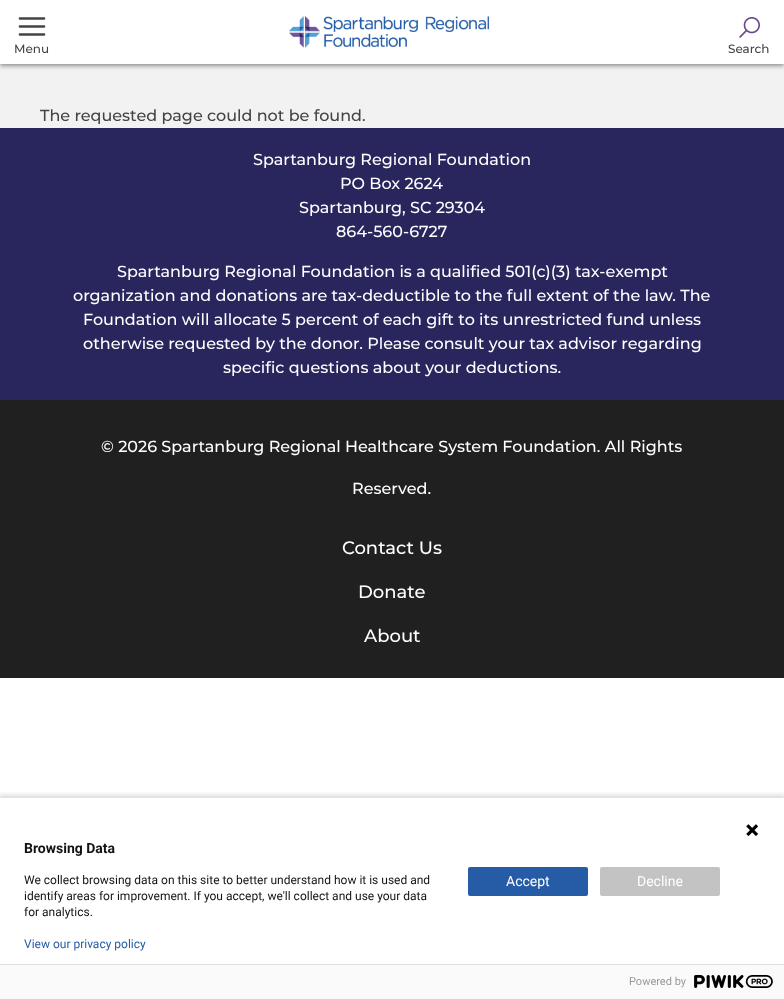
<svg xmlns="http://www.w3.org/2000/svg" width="784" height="999">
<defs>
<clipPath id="clip1"><rect x="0" y="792" width="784" height="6"/></clipPath>
</defs>
<rect width="100%" height="100%" fill="#fff"/>
<rect y="64" width="784" height="64" fill="#f2f2f2"/>
<rect y="2" width="784" height="64" fill="#2f2f2f80" filter="blur(2px)"/>
<rect width="784" height="64" fill="#fff"/>
<image x="289" y="16" width="200" height="32" href="media/1.png"/>
<path d="M20 18.5h24m-24 8h24m-24 8h24" fill="none" stroke="#444" stroke-width="2.7" stroke-linecap="round"/>
<text x="14" y="53" style="font-family:Montserrat;font-size:12px;font-weight:100;fill:#444">Menu</text>
<image x="739" y="17" width="21" height="21" href="media/2.png"/>
<text x="728" y="53" style="font-family:Montserrat;font-size:12px;font-weight:100;fill:#444">Search</text>
<text x="40" y="121" style="font-family:Montserrat;font-size:16px;font-weight:100;fill:#444">The requested page could not be found.</text>
<rect y="128" width="784" height="272" fill="#29255d"/>
<text x="253" y="165" style="font-family:Montserrat;font-size:16px;font-weight:100;fill:#fff">Spartanburg Regional Foundation</text>
<text x="340" y="189" style="font-family:Montserrat;font-size:16px;font-weight:100;fill:#fff">PO Box 2624</text>
<text x="299" y="213" style="font-family:Montserrat;font-size:16px;font-weight:100;fill:#fff">Spartanburg, SC 29304</text>
<text x="336" y="237" style="font-family:Montserrat;font-size:16px;font-weight:100;fill:#fff">864-560-6727</text>
<text x="117" y="277" style="font-family:Montserrat;font-size:16px;font-weight:100;fill:#fff">Spartanburg Regional Foundation is a qualified 501(c)(3) tax-exempt</text>
<text x="73" y="301" style="font-family:Montserrat;font-size:16px;font-weight:100;fill:#fff">organization and donations are tax-deductible to the full extent of the law. The</text>
<text x="83" y="325" style="font-family:Montserrat;font-size:16px;font-weight:100;fill:#fff">Foundation will allocate 5 percent of each gift to its unrestricted fund unless</text>
<text x="83" y="349" style="font-family:Montserrat;font-size:16px;font-weight:100;fill:#fff">otherwise requested by the donor. Please consult your tax advisor regarding</text>
<text x="223" y="373" style="font-family:Montserrat;font-size:16px;font-weight:100;fill:#fff">specific questions about your deductions.</text>
<rect y="400" width="784" height="278" fill="#202020"/>
<text x="101" y="452" style="font-family:Montserrat;font-size:16px;font-weight:100;fill:#fff">© 2026 Spartanburg Regional Healthcare System Foundation. All Rights</text>
<text x="352" y="494" style="font-family:Montserrat;font-size:16px;font-weight:100;fill:#fff">Reserved.</text>
<text x="342" y="554" style="font-family:Montserrat;font-size:18px;font-weight:100;fill:#fff">Contact Us</text>
<text x="358" y="598" style="font-family:Montserrat;font-size:18px;font-weight:100;fill:#fff">Donate</text>
<text x="364" y="642" style="font-family:Montserrat;font-size:18px;font-weight:100;fill:#fff">About</text>
<g clip-path="url(#clip1)">
<rect x="-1" y="795" width="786" height="203" fill="#00000024" filter="blur(2.5px)"/>
</g>
<image x="746" y="824" width="13" height="13" href="media/3.png"/>
<text x="24" y="853" style="font-family:Roboto;font-size:14px;font-weight:bold;fill:#131313">Browsing Data</text>
<text x="24" y="884" style="font-family:Roboto;font-size:12px;fill:#131313">We collect browsing data on this site to better understand how it is used and</text>
<text x="24" y="900" style="font-family:Roboto;font-size:12px;fill:#131313">identify areas for improvement. If you accept, we'll collect and use your data</text>
<text x="24" y="916" style="font-family:Roboto;font-size:12px;fill:#131313">for analytics.</text>
<text x="24" y="948" style="font-family:Roboto;font-size:12px;fill:#265ca6">View our privacy policy</text>
<rect x="468" y="867" width="120" height="29" rx="2" fill="#265ca6"/>
<text x="506" y="886" style="font-family:Roboto;font-size:14px;fill:#fff">Accept</text>
<rect x="600" y="867" width="120" height="29" rx="2" fill="#c3c3c3"/>
<text x="637" y="886" style="font-family:Roboto;font-size:14px;fill:#fff">Decline</text>
<rect y="965" width="784" height="34" fill="#fafafa"/>
<rect y="964" width="784" height="1" fill="#ddd"/>
<text x="629" y="985" style="font-family:Roboto;font-size:11px;fill:#999">Powered by</text>
<image x="694" y="975" width="79" height="13" href="media/4.png"/>
</svg>
